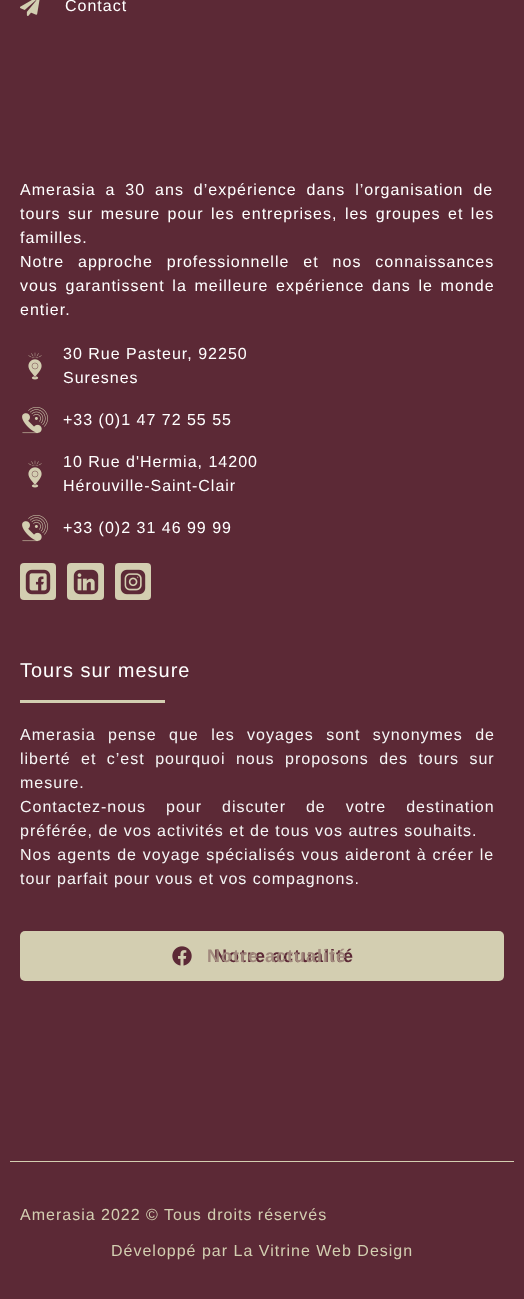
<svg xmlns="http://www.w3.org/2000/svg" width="524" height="1299">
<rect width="100%" height="100%" fill="#5c2936"/>
<image x="20" y="0" width="20" height="16" href="media/1.png"/>
<text x="65" y="11" style="font-family:Liberation Sans;font-size:16px;letter-spacing:1px;fill:#fff">Contact</text>
<text x="20" y="195" word-spacing="4.5" style="font-family:Liberation Sans;font-size:16px;letter-spacing:1px;fill:#fff">Amerasia a 30 ans d’expérience dans l’organisation de</text>
<text x="20" y="219" word-spacing="2" style="font-family:Liberation Sans;font-size:16px;letter-spacing:1px;fill:#fff">tours sur mesure pour les entreprises, les groupes et les</text>
<text x="20" y="243" style="font-family:Liberation Sans;font-size:16px;letter-spacing:1px;fill:#fff">familles.</text>
<text x="20" y="267" word-spacing="8.5" style="font-family:Liberation Sans;font-size:16px;letter-spacing:1px;fill:#fff">Notre approche professionnelle et nos connaissances</text>
<text x="20" y="291" word-spacing="2.25" style="font-family:Liberation Sans;font-size:16px;letter-spacing:1px;fill:#fff">vous garantissent la meilleure expérience dans le monde</text>
<text x="20" y="315" style="font-family:Liberation Sans;font-size:16px;letter-spacing:1px;fill:#fff">entier.</text>
<image x="28" y="352" width="14" height="28" href="media/2.png"/>
<text x="63" y="359" style="font-family:Liberation Sans;font-size:16px;letter-spacing:1px;fill:#fff">30 Rue Pasteur, 92250</text>
<text x="63" y="383" style="font-family:Liberation Sans;font-size:16px;letter-spacing:1px;fill:#fff">Suresnes</text>
<image x="22" y="407" width="26" height="27" href="media/3.png"/>
<text x="63" y="425" style="font-family:Liberation Sans;font-size:16px;letter-spacing:1px;fill:#fff">+33 (0)1 47 72 55 55</text>
<image x="28" y="460" width="14" height="28" href="media/2.png"/>
<text x="63" y="467" style="font-family:Liberation Sans;font-size:16px;letter-spacing:1px;fill:#fff">10 Rue d'Hermia, 14200</text>
<text x="63" y="491" style="font-family:Liberation Sans;font-size:16px;letter-spacing:1px;fill:#fff">Hérouville-Saint-Clair</text>
<image x="22" y="515" width="26" height="27" href="media/3.png"/>
<text x="63" y="533" style="font-family:Liberation Sans;font-size:16px;letter-spacing:1px;fill:#fff">+33 (0)2 31 46 99 99</text>
<rect x="20" y="563" width="36" height="37" rx="4" fill="#d3ceb1"/>
<image x="25" y="569" width="26" height="26" href="media/4.png"/>
<rect x="67" y="563" width="37" height="37" rx="4" fill="#d3ceb1"/>
<image x="73" y="569" width="26" height="26" href="media/5.png"/>
<rect x="115" y="563" width="36" height="37" rx="4" fill="#d3ceb1"/>
<image x="120" y="569" width="26" height="26" href="media/6.png"/>
<text x="20" y="677" style="font-family:Liberation Sans;font-size:20px;letter-spacing:1px;fill:#fff">Tours sur mesure</text>
<rect x="20" y="700" width="145" height="3" fill="#d3ceb1"/>
<text x="20" y="740" word-spacing="7" style="font-family:Liberation Sans;font-size:16px;letter-spacing:1px;fill:#f5f5f5">Amerasia pense que les voyages sont synonymes de</text>
<text x="20" y="764" word-spacing="5" style="font-family:Liberation Sans;font-size:16px;letter-spacing:1px;fill:#f5f5f5">liberté et c’est pourquoi nous proposons des tours sur</text>
<text x="20" y="788" style="font-family:Liberation Sans;font-size:16px;letter-spacing:1px;fill:#f5f5f5">mesure.</text>
<text x="20" y="812" word-spacing="14.5" style="font-family:Liberation Sans;font-size:16px;letter-spacing:1px;fill:#f5f5f5">Contactez-nous pour discuter de votre destination</text>
<text x="20" y="836" style="font-family:Liberation Sans;font-size:16px;letter-spacing:1px;fill:#f5f5f5">préférée, de vos activités et de tous vos autres souhaits.</text>
<text x="20" y="860" word-spacing="0.4" style="font-family:Liberation Sans;font-size:16px;letter-spacing:1px;fill:#f5f5f5">Nos agents de voyage spécialisés vous aideront à créer le</text>
<text x="20" y="884" style="font-family:Liberation Sans;font-size:16px;letter-spacing:1px;fill:#f5f5f5">tour parfait pour vous et vos compagnons.</text>
<rect x="20" y="931" width="484" height="50" rx="5" fill="#d3ceb1"/>
<text x="214" y="962" style="font-family:Liberation Sans;font-size:18px;font-weight:bold;letter-spacing:1px;fill:#5c2936">Notre actualité</text>
<text x="207" y="962" style="font-family:Liberation Sans;font-size:18px;font-weight:bold;letter-spacing:1px;fill:#a1897d">Notre actualité</text>
<image x="172" y="946" width="20" height="20" href="media/7.png"/>
<rect x="10" y="1161" width="504" height="1" fill="#d3ceb1"/>
<text x="20" y="1220" style="font-family:Liberation Sans;font-size:16px;letter-spacing:1px;fill:#d3ceb1">Amerasia 2022 © Tous droits réservés</text>
<text x="111" y="1256" style="font-family:Liberation Sans;font-size:16px;letter-spacing:1px;fill:#d3ceb1">Développé par La Vitrine Web Design</text>
</svg>
